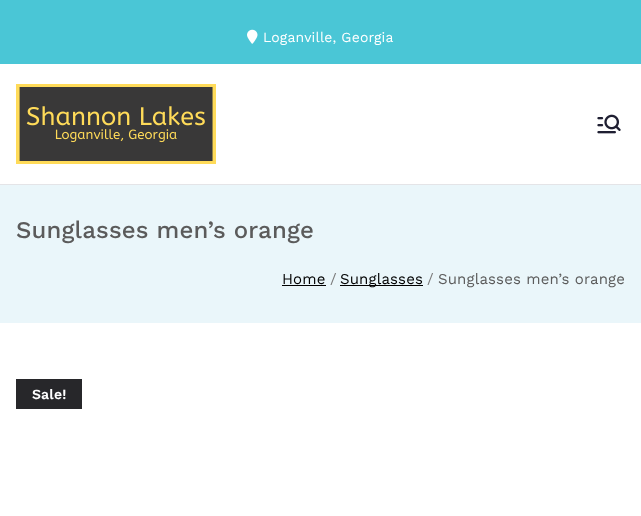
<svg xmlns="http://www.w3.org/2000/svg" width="641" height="516">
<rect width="100%" height="100%" fill="#e4e4e7"/>
<rect width="641" height="64" fill="#4ac6d6"/>
<image x="247" y="29" width="11" height="15" href="media/1.png"/>
<text x="263" y="42" style="font-family:Work Sans;font-size:14px;letter-spacing:0.15px;fill:#fff">Loganville, Georgia</text>
<rect y="64" width="641" height="120" fill="#fff"/>
<image x="16" y="84" width="200" height="80" href="media/2.png"/>
<image x="597" y="114" width="24" height="20" href="media/3.png"/>
<rect y="185" width="641" height="138" fill="#eaf6fa"/>
<text x="16" y="238" style="font-family:Work Sans;font-size:24px;font-weight:500;letter-spacing:0.15px;fill:#5b5b5b">Sunglasses men’s orange</text>
<text x="282" y="284" style="font-family:Work Sans;font-size:15px;letter-spacing:0.15px;fill:#000">Home</text>
<rect x="282" y="285" width="44" height="1" fill="#000"/>
<text x="330" y="284" style="font-family:Work Sans;font-size:15px;letter-spacing:0.15px;fill:#7b7b7b">/</text>
<rect x="340" y="285" width="83" height="1" fill="#000"/>
<text x="340" y="284" style="font-family:Work Sans;font-size:15px;letter-spacing:0.15px;fill:#000">Sunglasses</text>
<text x="427" y="284" style="font-family:Work Sans;font-size:15px;letter-spacing:0.15px;fill:#7b7b7b">/</text>
<text x="438" y="284" style="font-family:Work Sans;font-size:15px;letter-spacing:0.15px;fill:#5b5b5b">Sunglasses men’s orange</text>
<rect y="323" width="641" height="193" fill="#fff"/>
<rect x="16" y="379" width="66" height="30" fill="#27272a"/>
<text x="32" y="399" style="font-family:Work Sans;font-size:14px;font-weight:600;letter-spacing:0.15px;fill:#fff">Sale!</text>
</svg>
